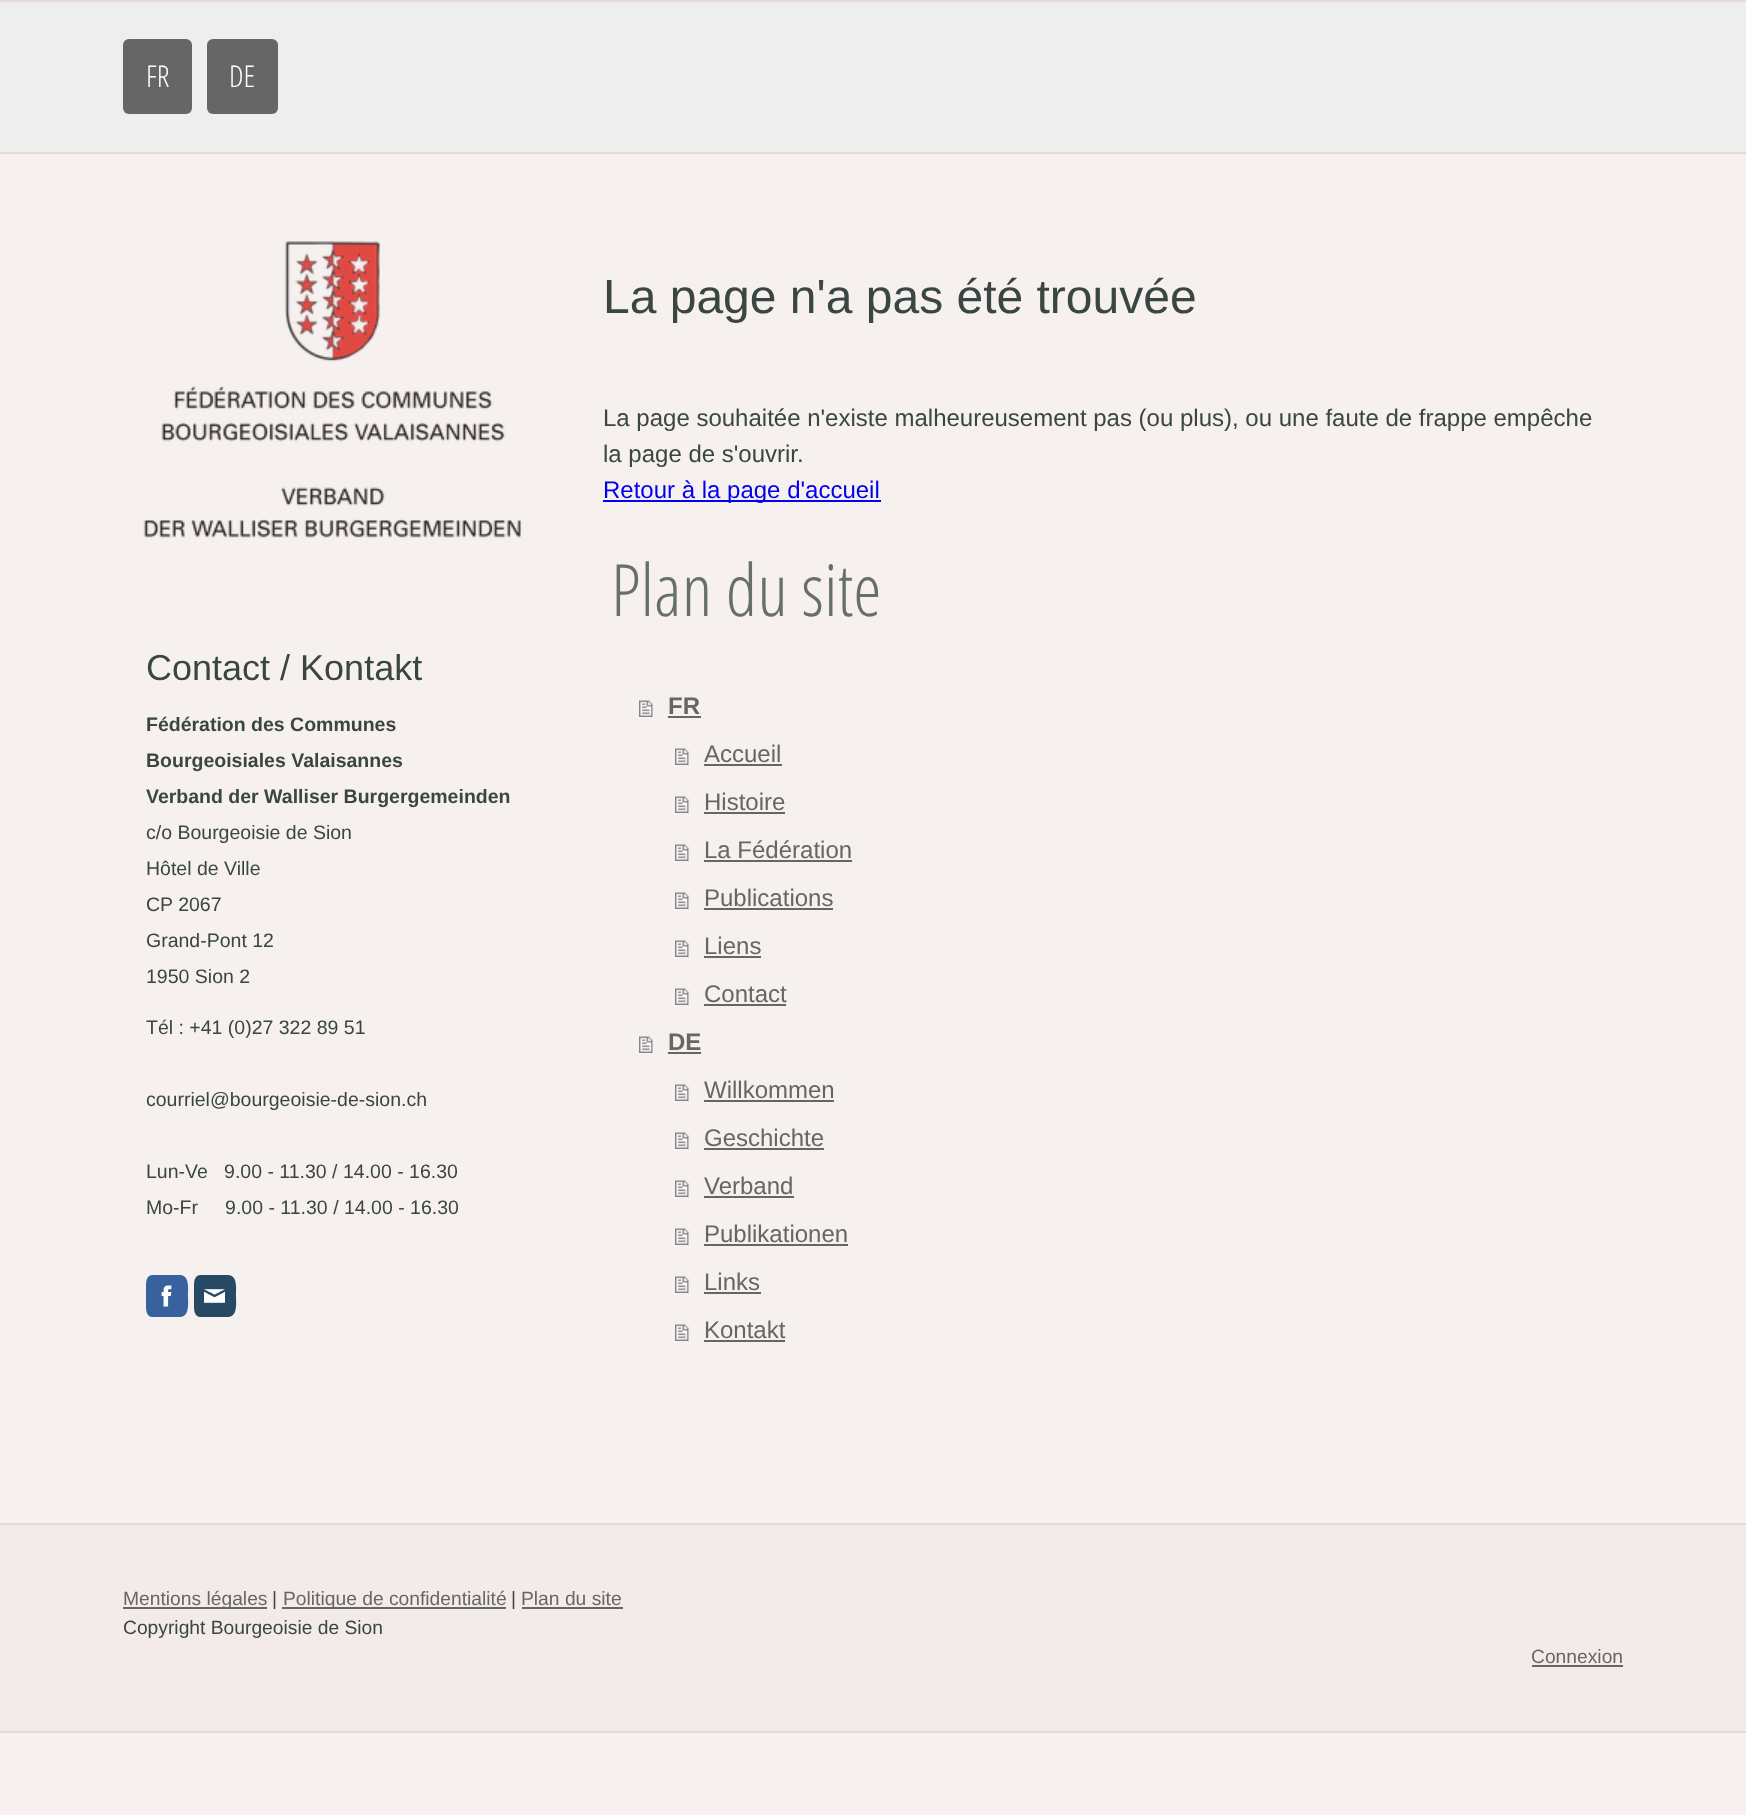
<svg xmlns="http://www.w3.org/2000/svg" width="1746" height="1815">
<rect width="100%" height="100%" fill="#f6f1ef"/>
<rect y="2" width="1746" height="150" fill="#eee"/>
<rect width="1746" height="2" fill="#e7dad5"/>
<rect y="152" width="1746" height="2" fill="#e7dad5"/>
<rect x="123" y="39" width="69" height="75" rx="6" fill="#666"/>
<text x="146" y="87" style="font-family:Open Sans Condensed;font-size:30px;font-weight:300;fill:#fff">FR</text>
<rect x="207" y="39" width="71" height="75" rx="6" fill="#666"/>
<text x="229" y="87" style="font-family:Open Sans Condensed;font-size:30px;font-weight:300;fill:#fff">DE</text>
<image x="143" y="241" width="378" height="297" href="media/1.png"/>
<text x="603" y="313" style="font-family:Arimo;font-size:48px;fill:#3a4642">La page n'a pas été trouvée</text>
<text x="603" y="426" style="font-family:Arimo;font-size:24px;fill:#3a4642">La page souhaitée n'existe malheureusement pas (ou plus), ou une faute de frappe empêche</text>
<text x="603" y="462" style="font-family:Arimo;font-size:24px;fill:#3a4642">la page de s'ouvrir.</text>
<rect x="603" y="500" width="278" height="2" fill="#00e"/>
<text x="603" y="498" style="font-family:Arimo;font-size:24px;fill:#00e">Retour à la page d'accueil</text>
<text x="611" y="616" style="font-family:Open Sans Condensed;font-size:72px;font-weight:300;fill:#676f6c">Plan du site</text>
<image x="639" y="700" width="14" height="17" href="media/2.png"/>
<text x="668" y="714" style="font-family:Arimo;font-size:24px;font-weight:bold;fill:#666">FR</text>
<rect x="668" y="716" width="33" height="2" fill="#666"/>
<image x="675" y="748" width="14" height="17" href="media/2.png"/>
<text x="704" y="762" style="font-family:Arimo;font-size:24px;fill:#666">Accueil</text>
<rect x="704" y="764" width="78" height="2" fill="#666"/>
<image x="675" y="796" width="14" height="17" href="media/2.png"/>
<text x="704" y="810" style="font-family:Arimo;font-size:24px;fill:#666">Histoire</text>
<rect x="704" y="812" width="81" height="2" fill="#666"/>
<image x="675" y="844" width="14" height="17" href="media/2.png"/>
<text x="704" y="858" style="font-family:Arimo;font-size:24px;fill:#666">La Fédération</text>
<rect x="704" y="860" width="148" height="2" fill="#666"/>
<image x="675" y="892" width="14" height="17" href="media/2.png"/>
<text x="704" y="906" style="font-family:Arimo;font-size:24px;fill:#666">Publications</text>
<rect x="704" y="908" width="129" height="2" fill="#666"/>
<image x="675" y="940" width="14" height="17" href="media/2.png"/>
<text x="704" y="954" style="font-family:Arimo;font-size:24px;fill:#666">Liens</text>
<rect x="704" y="956" width="57" height="2" fill="#666"/>
<image x="675" y="988" width="14" height="17" href="media/2.png"/>
<text x="704" y="1002" style="font-family:Arimo;font-size:24px;fill:#666">Contact</text>
<rect x="704" y="1004" width="82" height="2" fill="#666"/>
<image x="639" y="1036" width="14" height="17" href="media/2.png"/>
<text x="668" y="1050" style="font-family:Arimo;font-size:24px;font-weight:bold;fill:#666">DE</text>
<rect x="668" y="1052" width="33" height="2" fill="#666"/>
<image x="675" y="1084" width="14" height="17" href="media/2.png"/>
<text x="704" y="1098" style="font-family:Arimo;font-size:24px;fill:#666">Willkommen</text>
<rect x="704" y="1100" width="130" height="2" fill="#666"/>
<image x="675" y="1132" width="14" height="17" href="media/2.png"/>
<text x="704" y="1146" style="font-family:Arimo;font-size:24px;fill:#666">Geschichte</text>
<rect x="704" y="1148" width="120" height="2" fill="#666"/>
<image x="675" y="1180" width="14" height="17" href="media/2.png"/>
<text x="704" y="1194" style="font-family:Arimo;font-size:24px;fill:#666">Verband</text>
<rect x="704" y="1196" width="90" height="2" fill="#666"/>
<image x="675" y="1228" width="14" height="17" href="media/2.png"/>
<text x="704" y="1242" style="font-family:Arimo;font-size:24px;fill:#666">Publikationen</text>
<rect x="704" y="1244" width="144" height="2" fill="#666"/>
<image x="675" y="1276" width="14" height="17" href="media/2.png"/>
<text x="704" y="1290" style="font-family:Arimo;font-size:24px;fill:#666">Links</text>
<rect x="704" y="1292" width="57" height="2" fill="#666"/>
<image x="675" y="1324" width="14" height="17" href="media/2.png"/>
<text x="704" y="1338" style="font-family:Arimo;font-size:24px;fill:#666">Kontakt</text>
<rect x="704" y="1340" width="81" height="2" fill="#666"/>
<text x="146" y="680" style="font-family:Arimo;font-size:36px;fill:#3a4642">Contact / Kontakt</text>
<text x="146" y="731" style="font-family:Arimo;font-size:19.5px;font-weight:bold;fill:#3a4642">Fédération des Communes</text>
<text x="146" y="767" style="font-family:Arimo;font-size:19.5px;font-weight:bold;fill:#3a4642">Bourgeoisiales Valaisannes</text>
<text x="146" y="803" style="font-family:Arimo;font-size:19.5px;font-weight:bold;fill:#3a4642">Verband der Walliser Burgergemeinden</text>
<text x="146" y="839" style="font-family:Arimo;font-size:19.5px;fill:#3a4642">c/o Bourgeoisie de Sion</text>
<text x="146" y="875" style="font-family:Arimo;font-size:19.5px;fill:#3a4642">Hôtel de Ville</text>
<text x="146" y="911" style="font-family:Arimo;font-size:19.5px;fill:#3a4642">CP 2067</text>
<text x="146" y="947" style="font-family:Arimo;font-size:19.5px;fill:#3a4642">Grand-Pont 12</text>
<text x="146" y="983" style="font-family:Arimo;font-size:19.5px;fill:#3a4642">1950 Sion 2</text>
<text x="146" y="1034" style="font-family:Arimo;font-size:19.5px;fill:#3a4642">Tél : +41 (0)27 322 89 51</text>
<text x="146" y="1106" style="font-family:Arimo;font-size:19.5px;fill:#3a4642">courriel@bourgeoisie-de-sion.ch</text>
<text x="146" y="1178" style="font-family:Arimo;font-size:19.5px;fill:#3a4642" xml:space="preserve">Lun-Ve   9.00 - 11.30 / 14.00 - 16.30</text>
<text x="146" y="1214" style="font-family:Arimo;font-size:19.5px;fill:#3a4642" xml:space="preserve">Mo-Fr     9.00 - 11.30 / 14.00 - 16.30</text>
<path d="M180 1317h-28c-6-1-6-7-6-12v-18c0-5 0-11 6-12h28c10 0 8 15 8 21c0 6 2 21-8 21z" fill="#38619f"/>
<image x="161" y="1285" width="11" height="22" href="media/3.png"/>
<path d="M228 1317h-28c-6-1-6-7-6-12v-18c0-5 0-11 6-12h28c10 0 8 15 8 21c0 6 2 21-8 21z" fill="#264a64"/>
<image x="204" y="1289" width="21" height="14" href="media/4.png"/>
<rect y="1525" width="1746" height="206" fill="#f3ebe9"/>
<rect y="1523" width="1746" height="2" fill="#e7dad5"/>
<rect y="1731" width="1746" height="2" fill="#e7dad5"/>
<rect x="123" y="1607" width="144" height="2" fill="#666"/>
<text x="123" y="1605" style="font-family:Arimo;font-size:19.25px;fill:#666">Mentions légales</text>
<text x="272" y="1605" style="font-family:Arimo;font-size:19.25px;fill:#3a4642">|</text>
<rect x="282" y="1607" width="224" height="2" fill="#666"/>
<text x="283" y="1605" style="font-family:Arimo;font-size:19.25px;fill:#666">Politique de confidentialité</text>
<text x="511" y="1605" style="font-family:Arimo;font-size:19.25px;fill:#3a4642">|</text>
<text x="521" y="1605" style="font-family:Arimo;font-size:19.25px;fill:#666">Plan du site</text>
<rect x="522" y="1607" width="101" height="2" fill="#666"/>
<text x="123" y="1634" style="font-family:Arimo;font-size:19.25px;fill:#3a4642">Copyright Bourgeoisie de Sion</text>
<text x="1531" y="1663" style="font-family:Arimo;font-size:19.25px;fill:#666">Connexion</text>
<rect x="1532" y="1665" width="91" height="2" fill="#666"/>
</svg>
